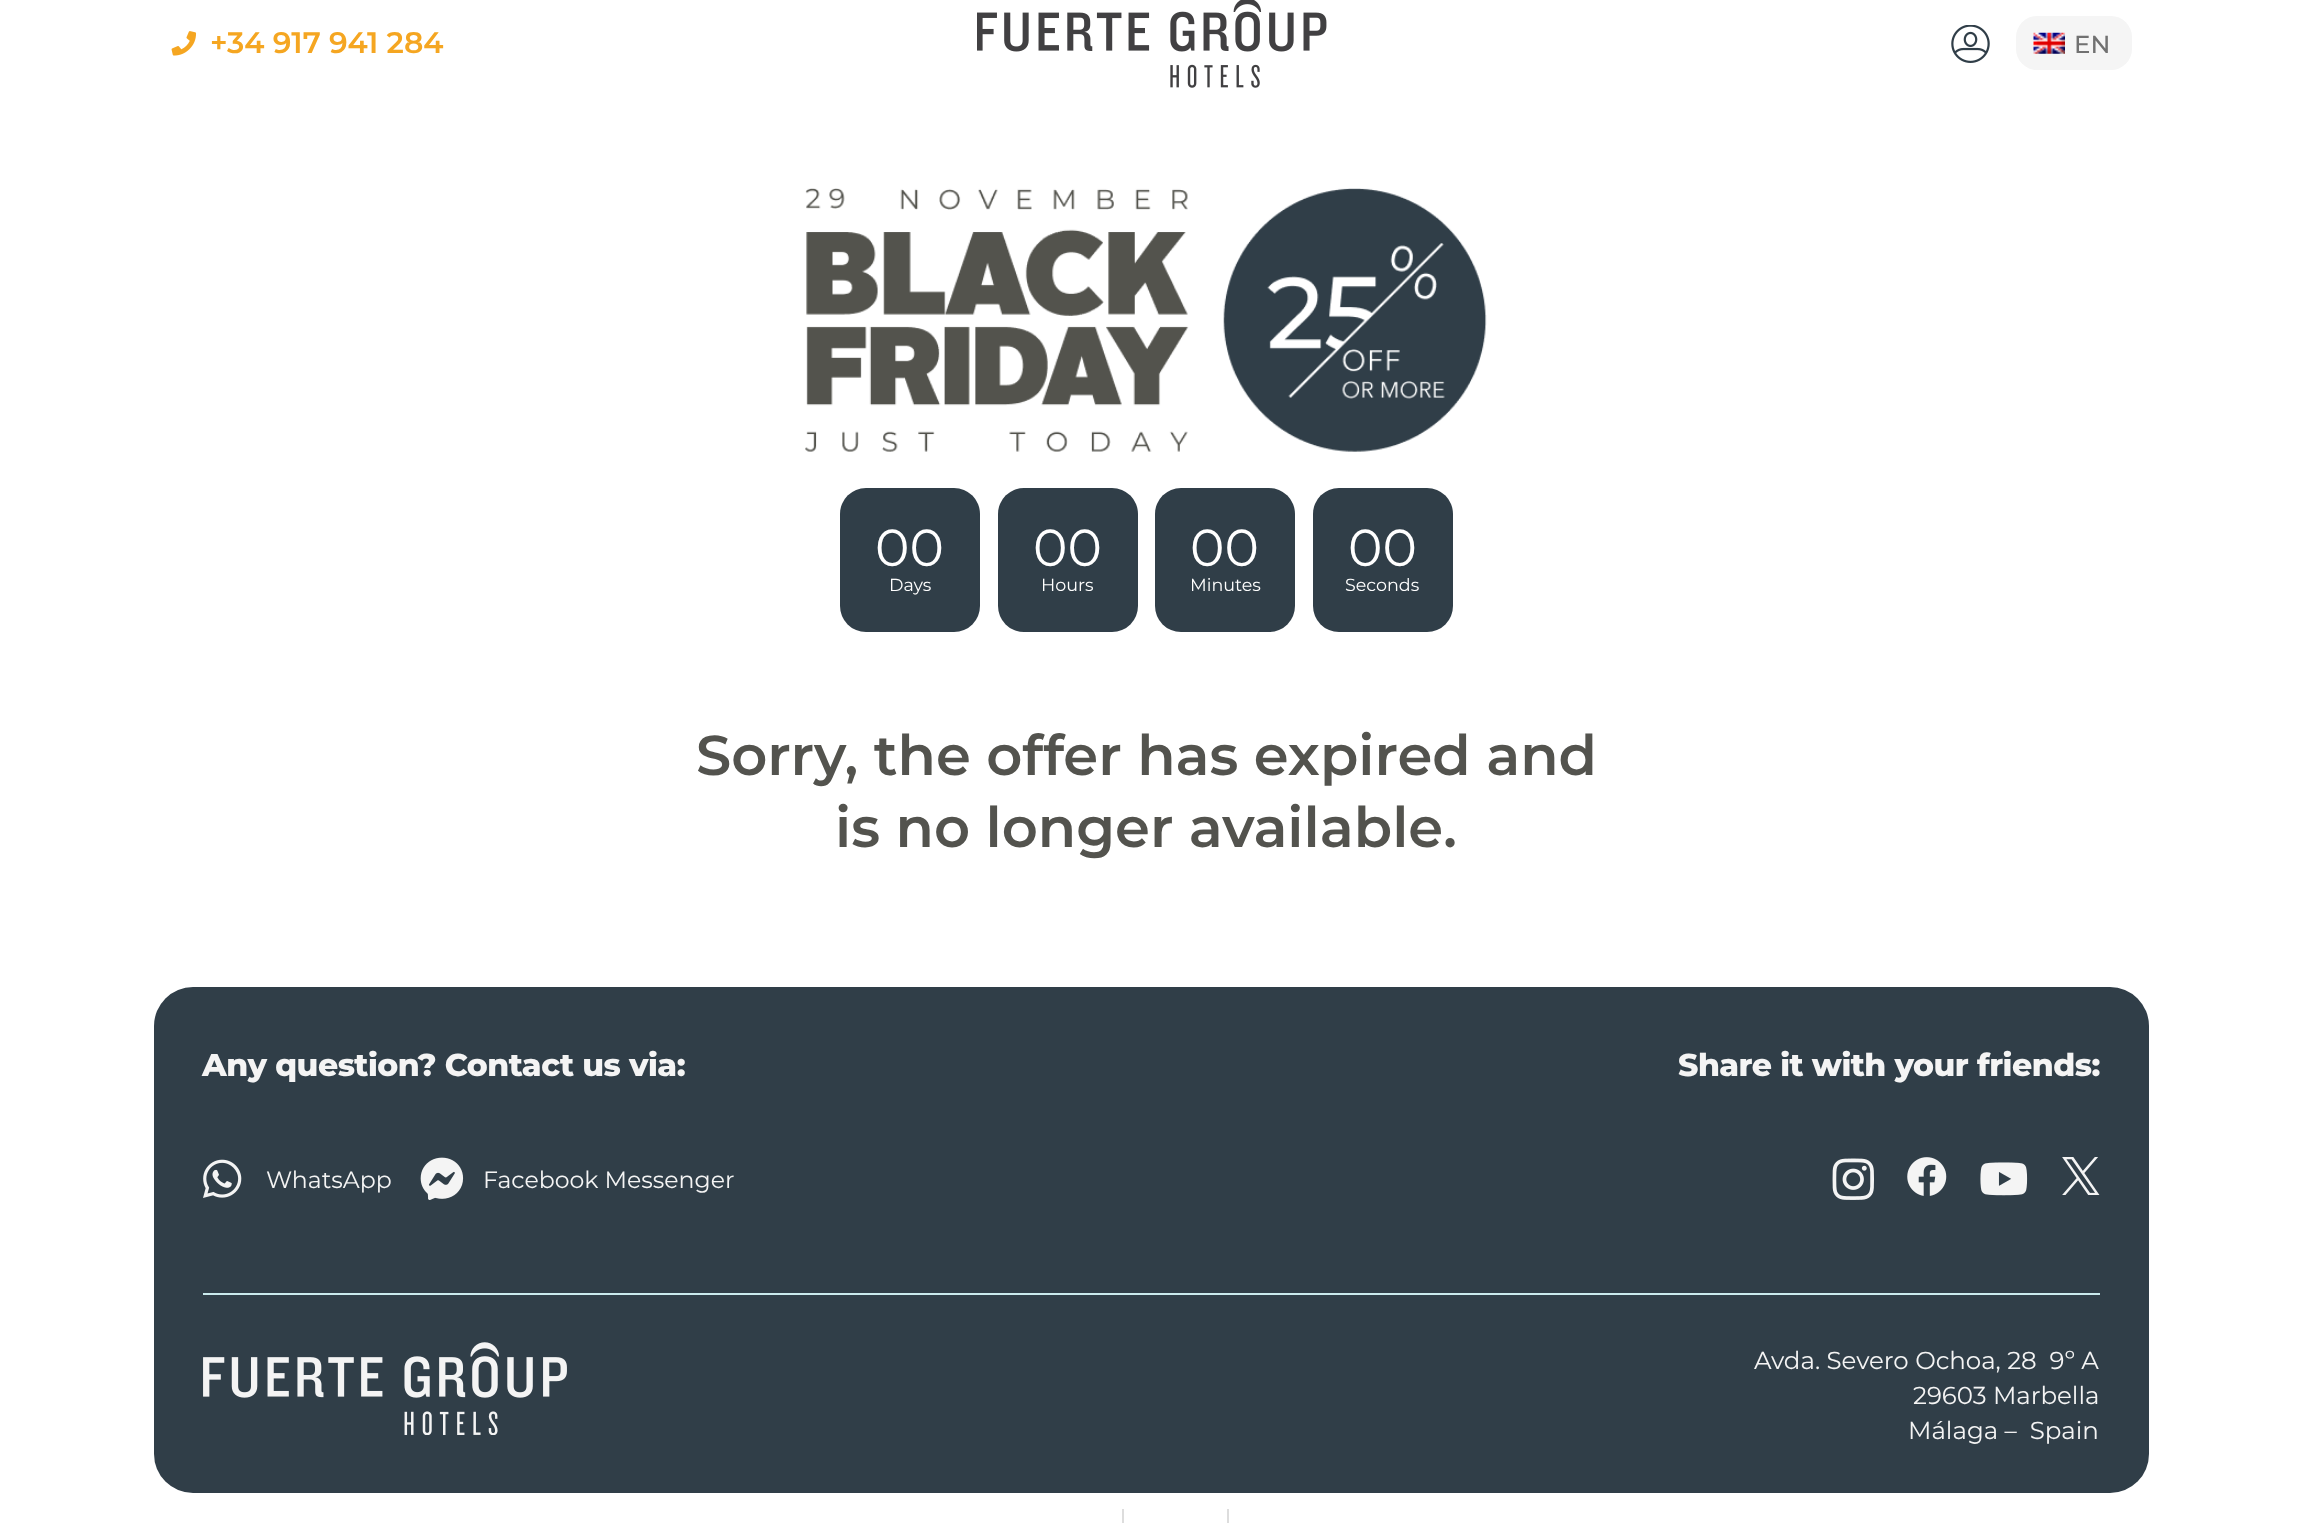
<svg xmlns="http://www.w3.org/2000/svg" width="2301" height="1523">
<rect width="100%" height="100%" fill="#fff"/>
<image x="171" y="31" width="26" height="25" href="media/1.png"/>
<text x="210" y="53" style="font-family:Montserrat;font-size:29.75px;font-weight:600;fill:#f5a621">+34 917 941 284</text>
<image x="977" y="0" width="350" height="88" href="media/2.png"/>
<image x="1951" y="25" width="39" height="38" href="media/3.png"/>
<rect x="2016" y="16" width="116" height="54" rx="21" fill="#f5f5f5"/>
<image x="2033" y="32" width="32" height="22" href="media/4.png"/>
<text x="2074" y="53" style="font-family:Montserrat;font-size:24.5px;font-weight:500;fill:#717171">EN</text>
<image x="805" y="188" width="682" height="264" href="media/5.png"/>
<rect x="840" y="488" width="140" height="144" rx="26" fill="#303e48"/>
<text x="875" y="566" style="font-family:Montserrat;font-size:52px;fill:#fff">00</text>
<text x="889" y="591" style="font-family:Montserrat;font-size:17.5px;fill:#fff">Days</text>
<rect x="998" y="488" width="140" height="144" rx="26" fill="#303e48"/>
<text x="1033" y="566" style="font-family:Montserrat;font-size:52px;fill:#fff">00</text>
<text x="1041" y="591" style="font-family:Montserrat;font-size:17.5px;fill:#fff">Hours</text>
<rect x="1155" y="488" width="140" height="144" rx="26" fill="#303e48"/>
<text x="1190" y="566" style="font-family:Montserrat;font-size:52px;fill:#fff">00</text>
<text x="1190" y="591" style="font-family:Montserrat;font-size:17.5px;fill:#fff">Minutes</text>
<rect x="1313" y="488" width="140" height="144" rx="26" fill="#303e48"/>
<text x="1348" y="566" style="font-family:Montserrat;font-size:52px;fill:#fff">00</text>
<text x="1345" y="591" style="font-family:Montserrat;font-size:17.5px;fill:#fff">Seconds</text>
<text x="696" y="775" style="font-family:Montserrat;font-size:56px;font-weight:600;fill:#53534e">Sorry, the offer has expired and</text>
<text x="835" y="847" style="font-family:Montserrat;font-size:56px;font-weight:600;fill:#53534e">is no longer available.</text>
<rect x="154" y="987" width="1995" height="506" rx="39" fill="#303e48"/>
<text x="202" y="1076" style="font-family:Montserrat;font-size:31.5px;font-weight:800;letter-spacing:-0.5px;fill:#f4f4f4">Any question? Contact us via:</text>
<image x="203" y="1159" width="39" height="39" href="media/6.png"/>
<text x="266" y="1188" style="font-family:Montserrat;font-size:23.6px;fill:#f4f4f4">WhatsApp</text>
<image x="420" y="1157" width="44" height="43" href="media/7.png"/>
<text x="483" y="1188" style="font-family:Montserrat;font-size:23.6px;fill:#f4f4f4">Facebook Messenger</text>
<text x="1678" y="1076" style="font-family:Montserrat;font-size:31.5px;font-weight:800;letter-spacing:-0.5px;fill:#f4f4f4">Share it with your friends:</text>
<image x="1832" y="1158" width="42" height="42" href="media/8.png"/>
<image x="1907" y="1157" width="40" height="39" href="media/9.png"/>
<image x="1980" y="1162" width="48" height="34" href="media/10.png"/>
<image x="2062" y="1157" width="38" height="38" href="media/11.png"/>
<rect x="203" y="1293" width="1897" height="2" fill="#caeaed"/>
<image x="203" y="1342" width="364" height="93" href="media/12.png"/>
<text x="1754" y="1369" style="font-family:Montserrat;font-size:24.5px;fill:#f4f4f4" xml:space="preserve">Avda. Severo Ochoa, 28  9º A</text>
<text x="1913" y="1404" style="font-family:Montserrat;font-size:24.5px;fill:#f4f4f4">29603 Marbella</text>
<text x="1908" y="1439" style="font-family:Montserrat;font-size:24.5px;fill:#f4f4f4" xml:space="preserve">Málaga –  Spain</text>
<rect x="1122" y="1509" width="2" height="14" fill="#ddd"/>
<rect x="1227" y="1509" width="2" height="14" fill="#ddd"/>
</svg>
